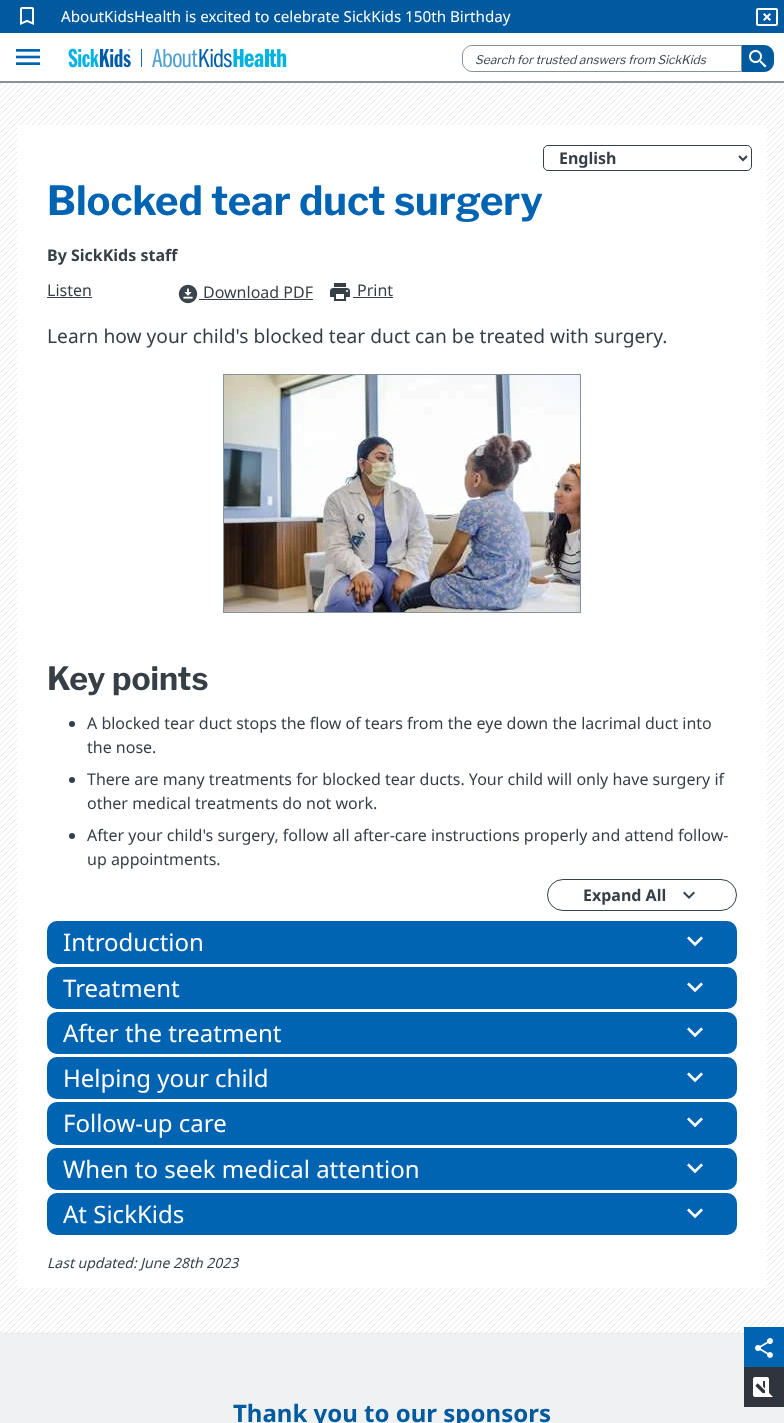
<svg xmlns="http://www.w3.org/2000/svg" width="784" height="1423">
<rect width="100%" height="100%" fill="#fff"/>
<image x="0" y="83" width="784" height="1251" href="media/1.png"/>
<rect width="784" height="33" fill="#015a9e"/>
<image x="20" y="7" width="14" height="18" href="media/2.png"/>
<text x="61" y="22" style="font-family:Noto Sans;font-size:15.2px;fill:#fff">AboutKidsHealth is excited to celebrate SickKids 150th Birthday</text>
<image x="756" y="8" width="22" height="18" href="media/3.png"/>
<rect y="81" width="784" height="2" fill="#889198"/>
<image x="16" y="49" width="24" height="16" href="media/4.png"/>
<image x="68" y="48" width="219" height="20" href="media/5.png"/>
<path d="M472 45.5h269.5v26h-269.5c-5 0-9.5-4.5-9.5-9.5v-7c0-5 4.5-9.5 9.5-9.5z" fill="none" stroke="#889198"/>
<text x="475" y="64" style="font-family:Libre Franklin;font-size:12px;font-style:italic;fill:#373f46">Search for trusted answers from SickKids</text>
<path d="M742 45h22c5.5 0 10 4.5 10 10v7c0 5.5-4.5 10-10 10h-22z" fill="#005a9e"/>
<image x="749" y="50" width="18" height="18" href="media/6.png"/>
<rect x="17" y="125" width="750" height="1163" fill="#fff"/>
<rect x="543.5" y="145.5" width="208" height="25" rx="4.5" fill="none" stroke="#373f47"/>
<path d="M739 156l4 4l4-4" fill="none" stroke="#373f47" stroke-width="2"/>
<text x="559" y="164" style="font-family:Noto Sans;font-size:16px;font-weight:bold;fill:#373f46">English</text>
<text x="47" y="215" style="font-family:Libre Franklin;font-size:40px;font-weight:bold;fill:#0064b2">Blocked tear duct surgery</text>
<text x="47" y="261" style="font-family:Noto Sans;font-size:16px;font-weight:bold;fill:#373f46">By SickKids staff</text>
<text x="47" y="296" style="font-family:Noto Sans;font-size:16px;fill:#373f46">Listen</text>
<rect x="47" y="297" width="45" height="1" fill="#3b444b"/>
<image x="178" y="284" width="20" height="20" href="media/7.png"/>
<text x="203" y="298" style="font-family:Noto Sans;font-size:16px;fill:#373f46">Download PDF</text>
<rect x="199" y="299" width="114" height="1" fill="#3b444b"/>
<image x="330" y="283" width="20" height="18" href="media/8.png"/>
<text x="357" y="296" style="font-family:Noto Sans;font-size:16px;fill:#373f46">Print</text>
<rect x="353" y="297" width="40" height="1" fill="#373f47"/>
<text x="47" y="343" style="font-family:Noto Sans;font-size:19.2px;fill:#373f46">Learn how your child's blocked tear duct can be treated with surgery.</text>
<rect x="223.5" y="374.5" width="357" height="238" fill="none" stroke="#889198"/>
<image x="224" y="375" width="356" height="237" href="media/9.png"/>
<text x="47" y="690" style="font-family:Libre Franklin;font-size:32px;font-weight:bold;fill:#373f46">Key points</text>
<circle cx="72" cy="724" r="3" fill="#373f47"/>
<text x="87" y="729" style="font-family:Noto Sans;font-size:16px;fill:#373f46">A blocked tear duct stops the flow of tears from the eye down the lacrimal duct into</text>
<text x="87" y="753" style="font-family:Noto Sans;font-size:16px;fill:#373f46">the nose.</text>
<circle cx="72" cy="780" r="3" fill="#373f47"/>
<text x="87" y="785" style="font-family:Noto Sans;font-size:16px;fill:#373f46">There are many treatments for blocked tear ducts. Your child will only have surgery if</text>
<text x="87" y="809" style="font-family:Noto Sans;font-size:16px;fill:#373f46">other medical treatments do not work.</text>
<circle cx="72" cy="836" r="3" fill="#373f47"/>
<text x="87" y="841" style="font-family:Noto Sans;font-size:16px;fill:#373f46">After your child's surgery, follow all after-care instructions properly and attend follow-</text>
<text x="87" y="865" style="font-family:Noto Sans;font-size:16px;fill:#373f46">up appointments.</text>
<rect x="547.5" y="879.5" width="189" height="31" rx="15.5" fill="none" stroke="#373f47"/>
<text x="583" y="901" style="font-family:Noto Sans;font-size:16px;font-weight:bold;fill:#373f46">Expand All</text>
<image x="683" y="891" width="12" height="8" href="media/10.png"/>
<rect x="47" y="921" width="690" height="43" rx="10" fill="#0064b2"/>
<text x="63" y="951" style="font-family:Noto Sans;font-size:24px;fill:#fff">Introduction</text>
<image x="687" y="936" width="16" height="11" href="media/11.png"/>
<rect x="47" y="967" width="690" height="42" rx="10" fill="#0064b2"/>
<text x="63" y="997" style="font-family:Noto Sans;font-size:24px;fill:#fff">Treatment</text>
<image x="687" y="982" width="16" height="11" href="media/11.png"/>
<rect x="47" y="1012" width="690" height="42" rx="10" fill="#0064b2"/>
<text x="63" y="1042" style="font-family:Noto Sans;font-size:24px;fill:#fff">After the treatment</text>
<image x="687" y="1027" width="16" height="11" href="media/11.png"/>
<rect x="47" y="1057" width="690" height="42" rx="10" fill="#0064b2"/>
<text x="63" y="1087" style="font-family:Noto Sans;font-size:24px;fill:#fff">Helping your child</text>
<image x="687" y="1072" width="16" height="11" href="media/11.png"/>
<rect x="47" y="1102" width="690" height="43" rx="10" fill="#0064b2"/>
<text x="63" y="1132" style="font-family:Noto Sans;font-size:24px;fill:#fff">Follow-up care</text>
<image x="687" y="1117" width="16" height="11" href="media/11.png"/>
<rect x="47" y="1148" width="690" height="42" rx="10" fill="#0064b2"/>
<text x="63" y="1178" style="font-family:Noto Sans;font-size:24px;fill:#fff">When to seek medical attention</text>
<image x="687" y="1163" width="16" height="11" href="media/11.png"/>
<rect x="47" y="1193" width="690" height="42" rx="10" fill="#0064b2"/>
<text x="63" y="1223" style="font-family:Noto Sans;font-size:24px;fill:#fff">At SickKids</text>
<image x="687" y="1208" width="16" height="11" href="media/11.png"/>
<text x="47" y="1268" style="font-family:Noto Sans;font-size:14px;font-style:italic;fill:#373f46">Last updated: June 28th 2023</text>
<rect y="1336" width="784" height="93" fill="#0000007d" filter="blur(2px)"/>
<rect y="1334" width="784" height="89" fill="#f0f1f2"/>
<rect x="744" y="1327" width="40" height="40" fill="#0064b2"/>
<image x="755" y="1338" width="18" height="20" href="media/12.png"/>
<text x="233" y="1422" style="font-family:Noto Sans;font-size:24px;font-weight:bold;fill:#005a9e">Thank you to our sponsors</text>
<rect x="744" y="1367" width="40" height="40" fill="#30343d"/>
<image x="753" y="1377" width="20" height="20" href="media/13.png"/>
</svg>
